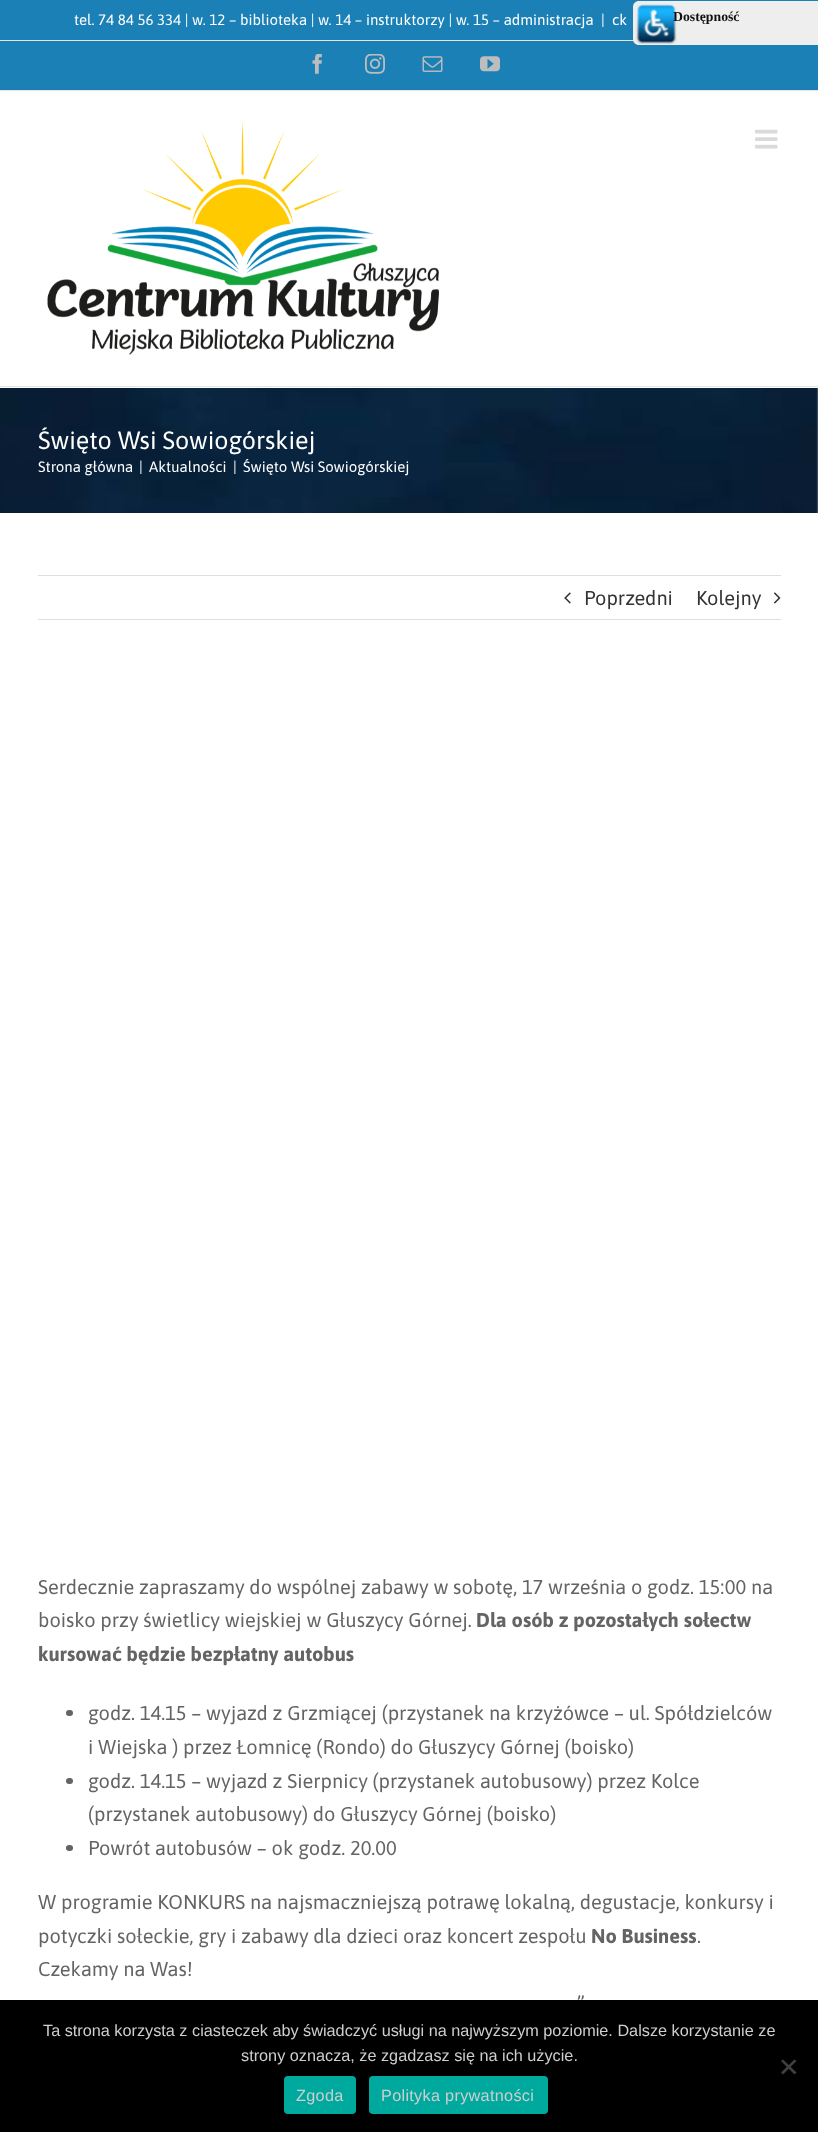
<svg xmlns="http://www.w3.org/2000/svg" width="818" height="2132">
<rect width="100%" height="100%" fill="#fff"/>
<rect width="818" height="90" fill="#1a80b6"/>
<rect y="40" width="634" height="1" fill="#e5e5e5"/>
<path d="M639 1h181v44h-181c-3.5 0-6-2.5-6-6v-32c0-3.5 2.5-6 6-6z" fill="#eee"/>
<image x="636" y="4" width="41" height="40" href="media/1.png"/>
<text x="673" y="21" style="font-family:Liberation Serif;font-size:13.75px;font-weight:bold;fill:#111">Dostępność</text>
<rect y="90" width="818" height="1" fill="#e5e5e5"/>
<text x="74" y="25" style="font-family:Asap;font-size:15px;fill:#fff">tel. 74 84 56 334 | w. 12 – biblioteka | w. 14 – instruktorzy | w. 15 – administracja</text>
<text x="601" y="25" style="font-family:Asap;font-size:15px;fill:#fff">|</text>
<text x="612" y="25" style="font-family:Asap;font-size:15px;fill:#fff">ck</text>
<image x="312" y="54" width="10" height="20" href="media/2.png"/>
<image x="365" y="54" width="20" height="20" href="media/3.png"/>
<image x="422" y="56" width="21" height="16" href="media/4.png"/>
<image x="480" y="56" width="20" height="16" href="media/5.png"/>
<rect y="386" width="818" height="1" fill="#e5e5e5"/>
<image x="47" y="122" width="392" height="233" href="media/6.png"/>
<image x="755" y="129" width="23" height="20" href="media/7.png"/>
<image x="0" y="388" width="818" height="125" href="media/8.png"/>
<text x="38" y="449" style="font-family:Asap;font-size:25px;fill:#fff">Święto Wsi Sowiogórskiej</text>
<text x="38" y="472" style="font-family:Asap;font-size:15px;fill:#fff">Strona główna</text>
<text x="139" y="472" style="font-family:Asap;font-size:15px;fill:#fff">|</text>
<text x="149" y="472" style="font-family:Asap;font-size:15px;fill:#fff">Aktualności</text>
<text x="233" y="472" style="font-family:Asap;font-size:15px;fill:#fff">|</text>
<text x="243" y="472" style="font-family:Asap;font-size:15px;fill:#fff">Święto Wsi Sowiogórskiej</text>
<rect x="38" y="575" width="743" height="1" fill="#e0dede"/>
<rect x="38" y="619" width="743" height="1" fill="#e0dede"/>
<image x="564" y="592" width="7" height="12" href="media/9.png"/>
<text x="584" y="605" style="font-family:Asap;font-size:20px;fill:#333">Poprzedni</text>
<text x="696" y="605" style="font-family:Asap;font-size:20px;fill:#333">Kolejny</text>
<image x="773" y="592" width="8" height="12" href="media/10.png"/>
<text x="38" y="1594" style="font-family:Asap;font-size:20px;fill:#646464">Serdecznie zapraszamy do wspólnej zabawy w sobotę, 17 września o godz. 15:00 na</text>
<text x="38" y="1627" style="font-family:Asap;font-size:20px;fill:#646464">boisko przy świetlicy wiejskiej w Głuszycy Górnej.</text>
<text x="476" y="1627" style="font-family:Asap;font-size:20px;font-weight:bold;fill:#646464">Dla osób z pozostałych sołectw</text>
<text x="38" y="1661" style="font-family:Asap;font-size:20px;font-weight:bold;fill:#646464">kursować będzie bezpłatny autobus</text>
<rect x="66" y="1710" width="7" height="6" rx="3" fill="#646464"/>
<text x="88" y="1720" style="font-family:Asap;font-size:20px;fill:#646464">godz. 14.15 – wyjazd z Grzmiącej (przystanek na krzyżówce – ul. Spółdzielców</text>
<text x="88" y="1754" style="font-family:Asap;font-size:20px;fill:#646464">i Wiejska ) przez Łomnicę (Rondo) do Głuszycy Górnej (boisko)</text>
<rect x="66" y="1778" width="7" height="6" rx="3" fill="#646464"/>
<text x="88" y="1788" style="font-family:Asap;font-size:20px;fill:#646464">godz. 14.15 – wyjazd z Sierpnicy (przystanek autobusowy) przez Kolce</text>
<text x="88" y="1821" style="font-family:Asap;font-size:20px;fill:#646464">(przystanek autobusowy) do Głuszycy Górnej (boisko)</text>
<rect x="66" y="1845" width="7" height="6" rx="3" fill="#646464"/>
<text x="88" y="1855" style="font-family:Asap;font-size:20px;fill:#646464">Powrót autobusów – ok godz. 20.00</text>
<text x="38" y="1909" style="font-family:Asap;font-size:20px;fill:#646464">W programie KONKURS na najsmaczniejszą potrawę lokalną, degustacje, konkursy i</text>
<text x="38" y="1943" style="font-family:Asap;font-size:20px;fill:#646464">potyczki sołeckie, gry i zabawy dla dzieci oraz koncert zespołu</text>
<text x="591" y="1943" style="font-family:Asap;font-size:20px;font-weight:bold;fill:#646464">No Business</text>
<text x="697" y="1943" style="font-family:Asap;font-size:20px;fill:#646464">.</text>
<text x="38" y="1976" style="font-family:Asap;font-size:20px;fill:#646464">Czekamy na Was!</text>
<text x="577" y="2010" style="font-family:Asap;font-size:20px;fill:#646464">”</text>
<rect y="2000" width="818" height="132" fill="#000"/>
<text x="43" y="2036" style="font-family:Liberation Sans;font-size:16.25px;fill:#cecece">Ta strona korzysta z ciasteczek aby świadczyć usługi na najwyższym poziomie. Dalsze korzystanie ze</text>
<text x="241" y="2061" style="font-family:Liberation Sans;font-size:16.25px;fill:#cecece">strony oznacza, że zgadzasz się na ich użycie.</text>
<path d="M794.5 2059.5l2 1.5l-13.5 13.5l-2-2z" fill="#404040"/>
<path d="M781 2061l2-1.5l13.5 13l-2 2z" fill="#404040"/>
<rect x="284" y="2076" width="72" height="38" rx="4" fill="#00a99d"/>
<text x="296" y="2101" style="font-family:Liberation Sans;font-size:16.25px;letter-spacing:0.3px;fill:#cecece">Zgoda</text>
<rect x="369" y="2076" width="179" height="38" rx="4" fill="#00a99d"/>
<text x="381" y="2101" style="font-family:Liberation Sans;font-size:16.25px;letter-spacing:0.3px;fill:#cecece">Polityka prywatności</text>
</svg>
